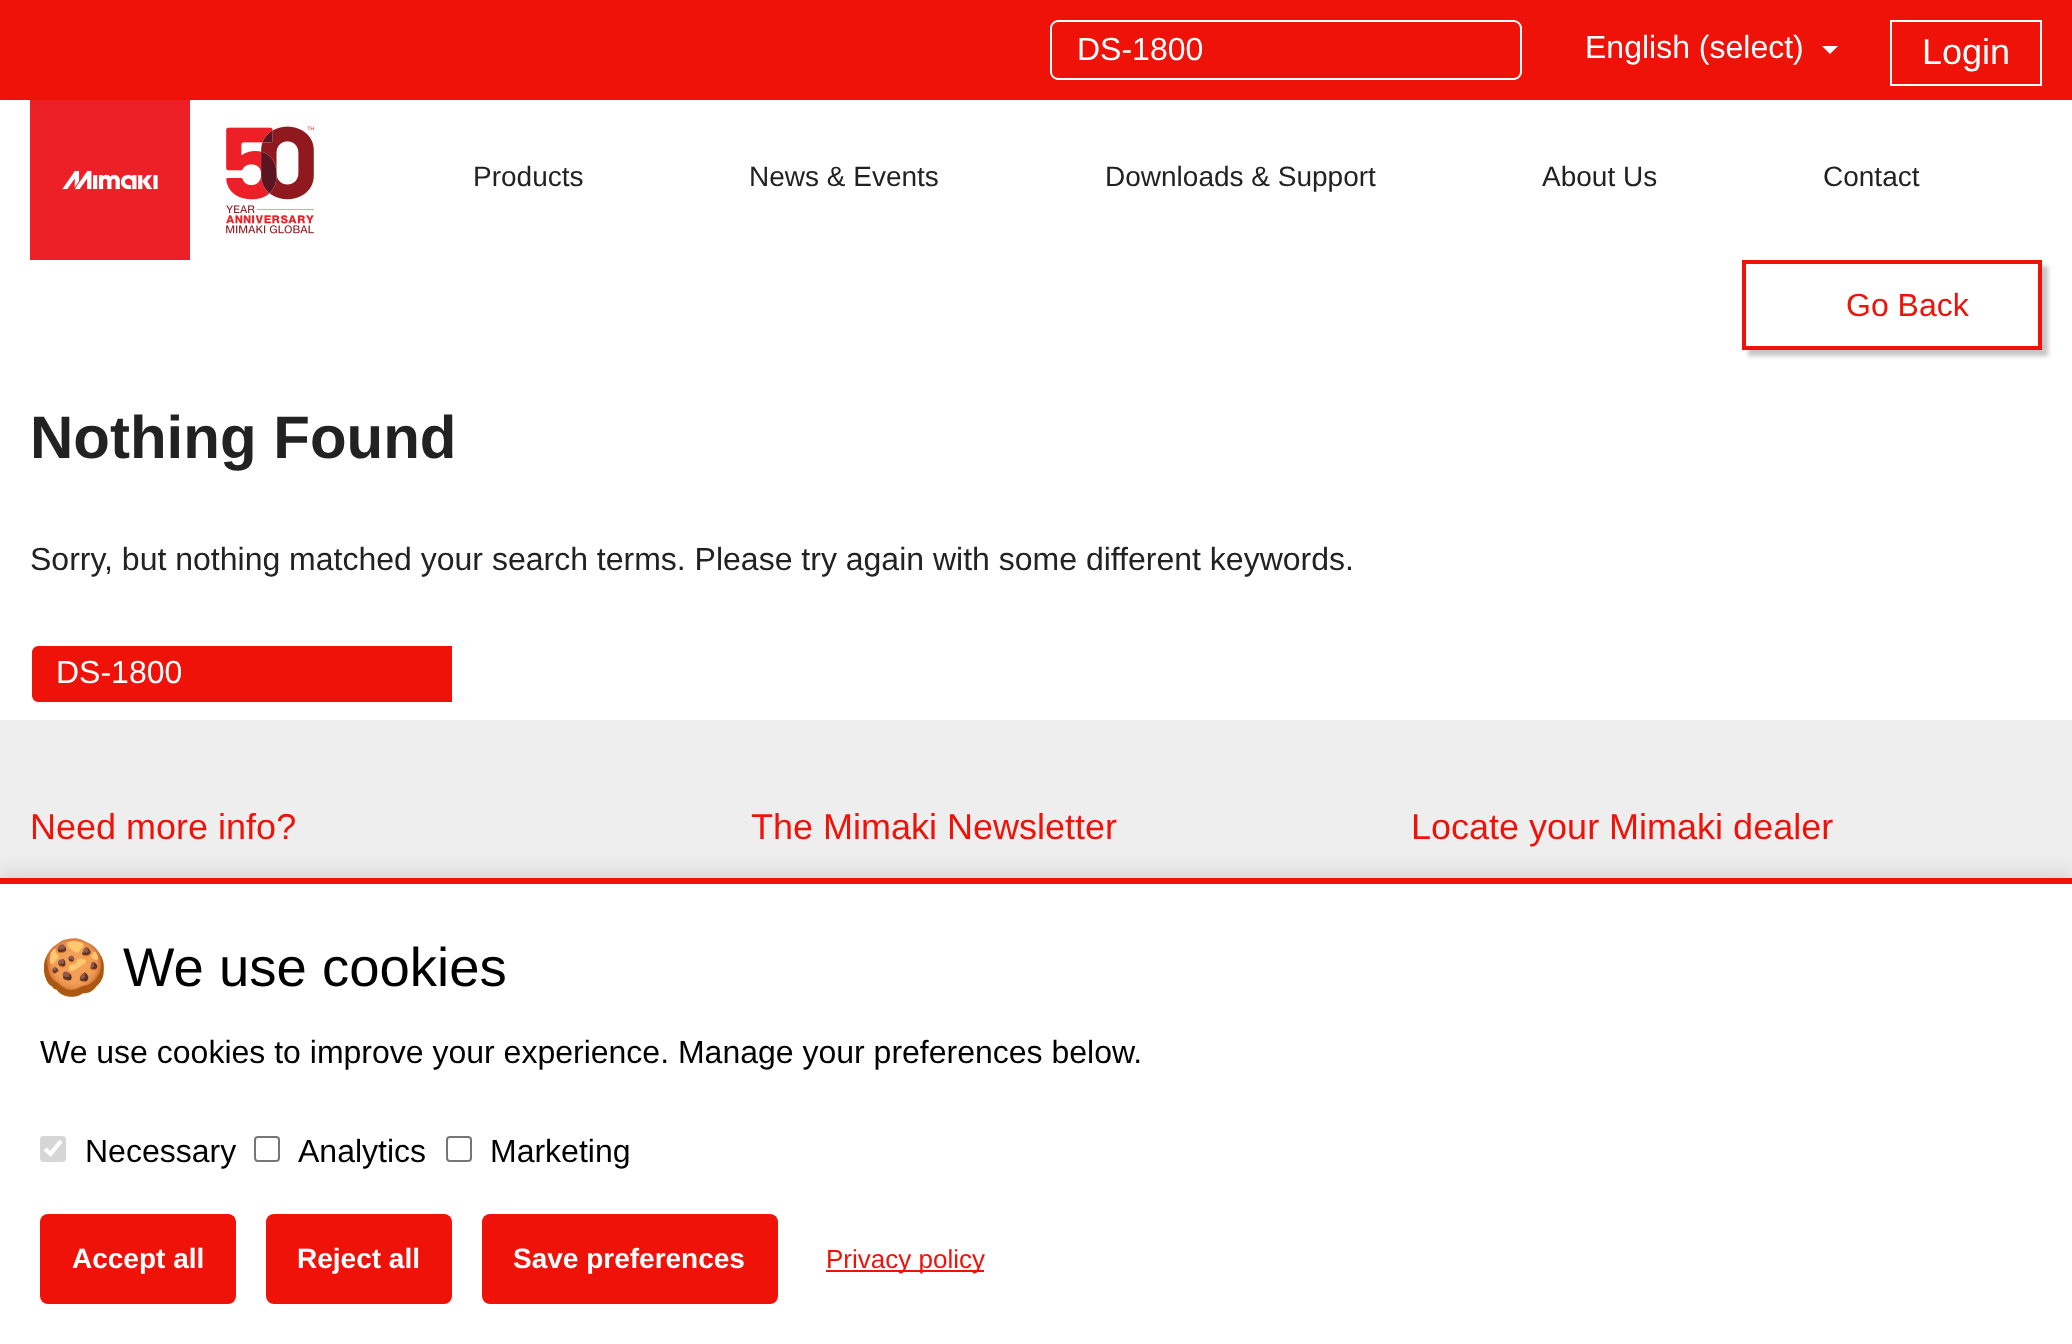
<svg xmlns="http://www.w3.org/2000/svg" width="2072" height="1344">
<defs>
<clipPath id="clip1"><path d="M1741 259h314v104h-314zm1 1h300v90h-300z" clip-rule="evenodd"/></clipPath>
</defs>
<rect width="100%" height="100%" fill="#fff"/>
<rect width="2072" height="100" fill="#ef1209"/>
<path d="M1058 20h414v60h-414c-4 0-8-4-8-8v-44c0-4 4-8 8-8zm0 2h414v56h-414c-3 0-6-3-6-6v-44c0-3 3-6 6-6z" fill="#fff" fill-rule="evenodd"/>
<text x="1077" y="60" style="font-family:Liberation Sans;font-size:32px;fill:#fff">DS-1800</text>
<path d="M1472 20h42c4 0 8 4 8 8v44c0 4-4 8-8 8h-42zm0 2h42c3 0 6 3 6 6v44c0 3-3 6-6 6h-42z" fill="#fff" fill-rule="evenodd"/>
<text x="1585" y="58" style="font-family:Liberation Sans;font-size:32px;fill:#fff">English (select)</text>
<path d="M1822 46h16l-8 8z" fill="#fff"/>
<rect x="1891" y="21" width="150" height="64" fill="none" stroke="#fff" stroke-width="2"/>
<text x="1922" y="64" style="font-family:Liberation Sans;font-size:36px;fill:#fff">Login</text>
<image x="30" y="100" width="284" height="160" href="media/1.png"/>
<text x="473" y="186" style="font-family:Liberation Sans;font-size:28px;fill:#222">Products</text>
<text x="749" y="186" style="font-family:Liberation Sans;font-size:28px;fill:#222">News &amp; Events</text>
<text x="1105" y="186" style="font-family:Liberation Sans;font-size:28px;fill:#222">Downloads &amp; Support</text>
<text x="1542" y="186" style="font-family:Liberation Sans;font-size:28px;fill:#222">About Us</text>
<text x="1823" y="186" style="font-family:Liberation Sans;font-size:28px;fill:#222">Contact</text>
<g clip-path="url(#clip1)">
<rect x="1748" y="266" width="300" height="90" fill="#c5c5c5" filter="blur(2px)"/>
</g>
<rect x="1744" y="262" width="296" height="86" fill="none" stroke="#ef1209" stroke-width="4"/>
<text x="1846" y="316" style="font-family:Liberation Sans;font-size:32px;fill:#ef1209">Go Back</text>
<text x="30" y="458" style="font-family:Liberation Sans;font-size:60px;font-weight:bold;fill:#222">Nothing Found</text>
<text x="30" y="570" style="font-family:Liberation Sans;font-size:32px;fill:#222">Sorry, but nothing matched your search terms. Please try again with some different keywords.</text>
<path d="M38 646h414v56h-414c-3.5 0-6-2.5-6-6v-44c0-3.5 2.5-6 6-6z" fill="#ef1209"/>
<path d="M38 644h414v60h-414c-4 0-8-4-8-8v-44c0-4 4-8 8-8zm0 2h414v56h-414c-3 0-6-3-6-6v-44c0-3 3-6 6-6z" fill="#fff" fill-rule="evenodd"/>
<text x="56" y="683" style="font-family:Liberation Sans;font-size:32px;fill:#fff">DS-1800</text>
<rect y="720" width="2072" height="158" fill="#eee"/>
<text x="30" y="839" style="font-family:Liberation Sans;font-size:36px;fill:#ef1209">Need more info?</text>
<text x="751" y="839" style="font-family:Liberation Sans;font-size:36px;fill:#ef1209">The Mimaki Newsletter</text>
<text x="1411" y="839" style="font-family:Liberation Sans;font-size:36px;fill:#ef1209">Locate your Mimaki dealer</text>
<rect y="872" width="2072" height="466" fill="#0000001a" filter="blur(10px)"/>
<rect y="884" width="2072" height="460" fill="#fff"/>
<rect y="878" width="2072" height="6" fill="#ef1209"/>
<text x="40" y="986" style="font-family:Noto Color Emoji;font-size:54.5px;fill:#000">🍪</text>
<text x="123" y="986" style="font-family:Liberation Sans;font-size:54.5px;fill:#000">We use cookies</text>
<text x="40" y="1063" style="font-family:Liberation Sans;font-size:32px;fill:#000">We use cookies to improve your experience. Manage your preferences below.</text>
<rect x="40" y="1136" width="26" height="26" rx="4" fill="#d6d6d6"/>
<path d="M45 1149l5.5 5l10.5-13" fill="none" stroke="#fff" stroke-width="4.2"/>
<text x="85" y="1162" style="font-family:Liberation Sans;font-size:32px;fill:#000">Necessary</text>
<rect x="255" y="1137" width="24" height="24" rx="3" fill="none" stroke="#767676" stroke-width="2"/>
<text x="298" y="1162" style="font-family:Liberation Sans;font-size:32px;fill:#000">Analytics</text>
<rect x="447" y="1137" width="24" height="24" rx="3" fill="none" stroke="#767676" stroke-width="2"/>
<text x="490" y="1162" style="font-family:Liberation Sans;font-size:32px;fill:#000">Marketing</text>
<rect x="40" y="1214" width="196" height="90" rx="8" fill="#ef1209"/>
<text x="72" y="1268" style="font-family:Liberation Sans;font-size:28px;font-weight:bold;fill:#fff">Accept all</text>
<rect x="266" y="1214" width="186" height="90" rx="8" fill="#ef1209"/>
<text x="297" y="1268" style="font-family:Liberation Sans;font-size:28px;font-weight:bold;fill:#fff">Reject all</text>
<rect x="482" y="1214" width="296" height="90" rx="8" fill="#ef1209"/>
<text x="513" y="1268" style="font-family:Liberation Sans;font-size:28px;font-weight:bold;fill:#fff">Save preferences</text>
<rect x="826" y="1270" width="158" height="2" fill="#ef1209"/>
<text x="826" y="1268" style="font-family:Liberation Sans;font-size:26px;fill:#ef1209">Privacy policy</text>
</svg>
